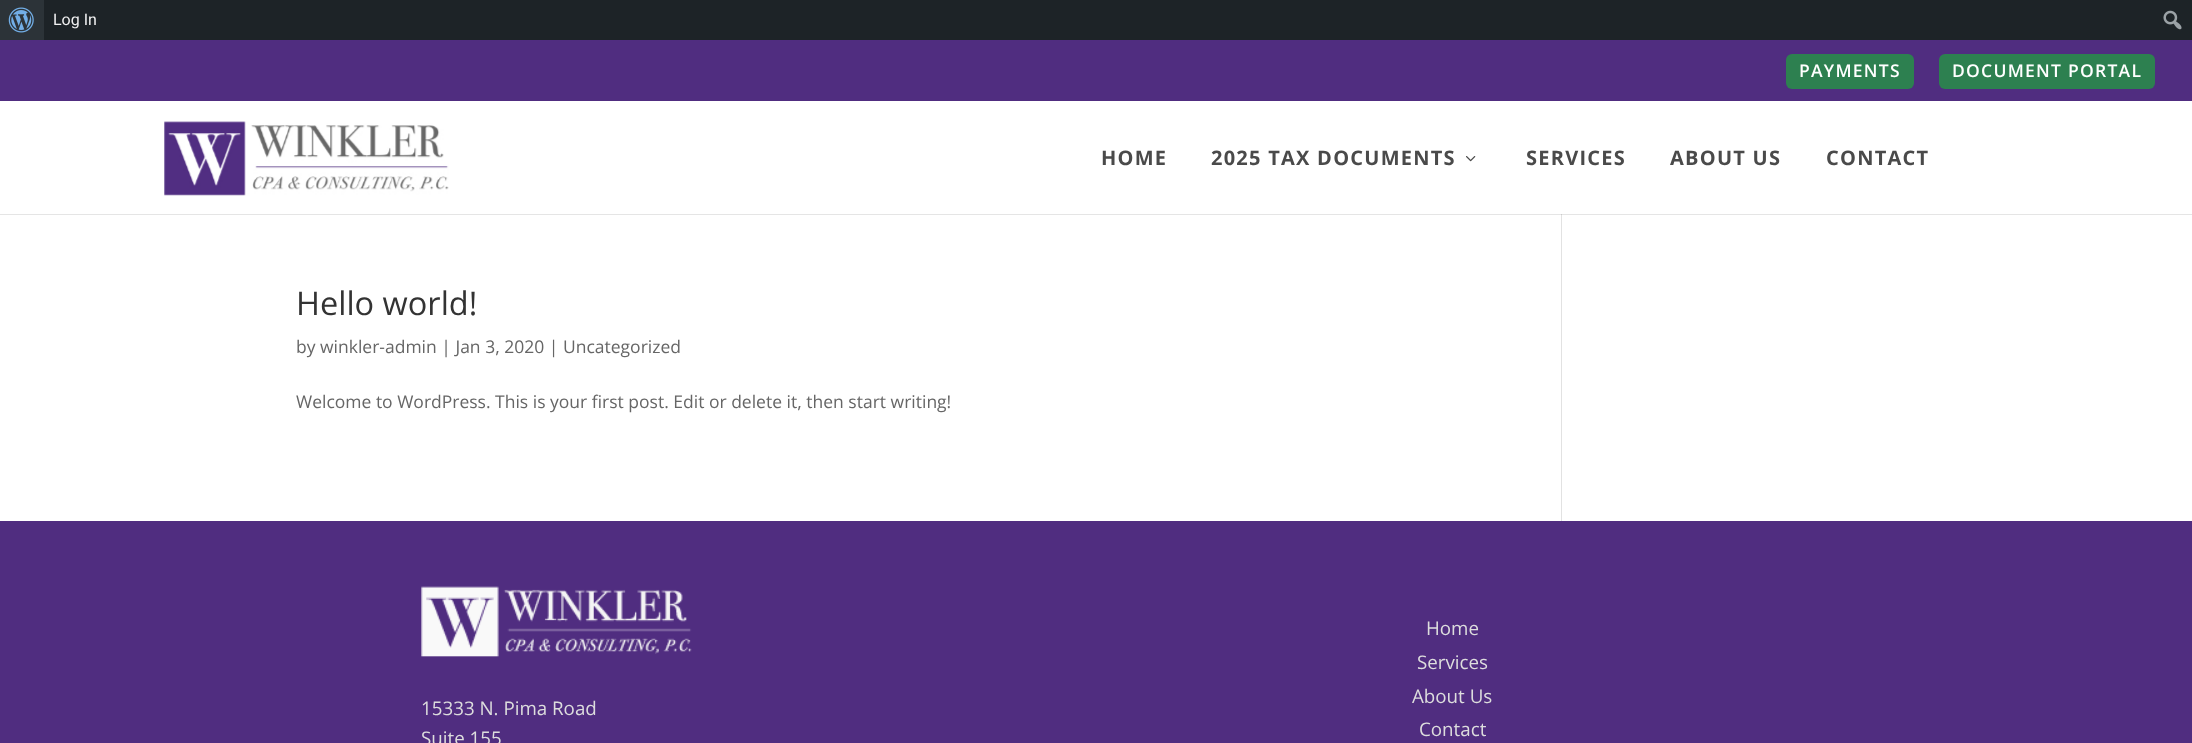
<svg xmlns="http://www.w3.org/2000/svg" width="2192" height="743">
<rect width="100%" height="100%" fill="#fff"/>
<rect x="44" width="2148" height="40" fill="#1d2327"/>
<rect width="44" height="40" fill="#2c3338"/>
<image x="8" y="7" width="26" height="26" href="media/1.png"/>
<text x="53" y="25" style="font-family:Roboto;font-size:16px;fill:#f0f0f1">Log In</text>
<image x="2163" y="10" width="19" height="20" href="media/2.png"/>
<rect y="40" width="2192" height="61" fill="#502d80"/>
<rect x="1786" y="54" width="128" height="35" rx="6" fill="#2d8050"/>
<text x="1799" y="77" style="font-family:Open Sans;font-size:17.5px;font-weight:600;letter-spacing:1.25px;fill:#fff">PAYMENTS</text>
<rect x="1939" y="54" width="216" height="35" rx="6" fill="#2d8050"/>
<text x="1952" y="77" style="font-family:Open Sans;font-size:17.5px;font-weight:600;letter-spacing:1.25px;fill:#fff">DOCUMENT PORTAL</text>
<rect x="1561" y="214" width="1" height="307" fill="#e2e2e2"/>
<path d="M0 214v1h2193v-112h-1v111z" fill="#0000001a"/>
<image x="164" y="121" width="285" height="75" href="media/3.png"/>
<text x="1101" y="165" style="font-family:Open Sans;font-size:20px;font-weight:bold;letter-spacing:1.25px;fill:#4a4a4a">HOME</text>
<text x="1211" y="165" style="font-family:Open Sans;font-size:20px;font-weight:bold;letter-spacing:1.25px;fill:#4a4a4a">2025 TAX DOCUMENTS</text>
<image x="1466" y="156" width="10" height="6" href="media/4.png"/>
<text x="1526" y="165" style="font-family:Open Sans;font-size:20px;font-weight:bold;letter-spacing:1.25px;fill:#4a4a4a">SERVICES</text>
<text x="1670" y="165" style="font-family:Open Sans;font-size:20px;font-weight:bold;letter-spacing:1.25px;fill:#4a4a4a">ABOUT US</text>
<text x="1826" y="165" style="font-family:Open Sans;font-size:20px;font-weight:bold;letter-spacing:1.25px;fill:#4a4a4a">CONTACT</text>
<text x="296" y="315" style="font-family:Open Sans;font-size:32.5px;fill:#333">Hello world!</text>
<text x="296" y="353" style="font-family:Open Sans;font-size:17.5px;fill:#666">by winkler-admin | Jan 3, 2020 | Uncategorized</text>
<text x="296" y="408" style="font-family:Open Sans;font-size:17.5px;fill:#666">Welcome to WordPress. This is your first post. Edit or delete it, then start writing!</text>
<rect y="521" width="2192" height="222" fill="#502d80"/>
<image x="421" y="586" width="271" height="71" href="media/5.png"/>
<text x="421" y="715" style="font-family:Open Sans;font-size:18.75px;fill:#ddd">15333 N. Pima Road</text>
<text x="421" y="745" style="font-family:Open Sans;font-size:18.75px;fill:#ddd">Suite 155</text>
<text x="1426" y="635" style="font-family:Open Sans;font-size:18.75px;fill:#ddd">Home</text>
<text x="1417" y="669" style="font-family:Open Sans;font-size:18.75px;fill:#ddd">Services</text>
<text x="1412" y="703" style="font-family:Open Sans;font-size:18.75px;fill:#ddd">About Us</text>
<text x="1419" y="736" style="font-family:Open Sans;font-size:18.75px;fill:#ddd">Contact</text>
</svg>
